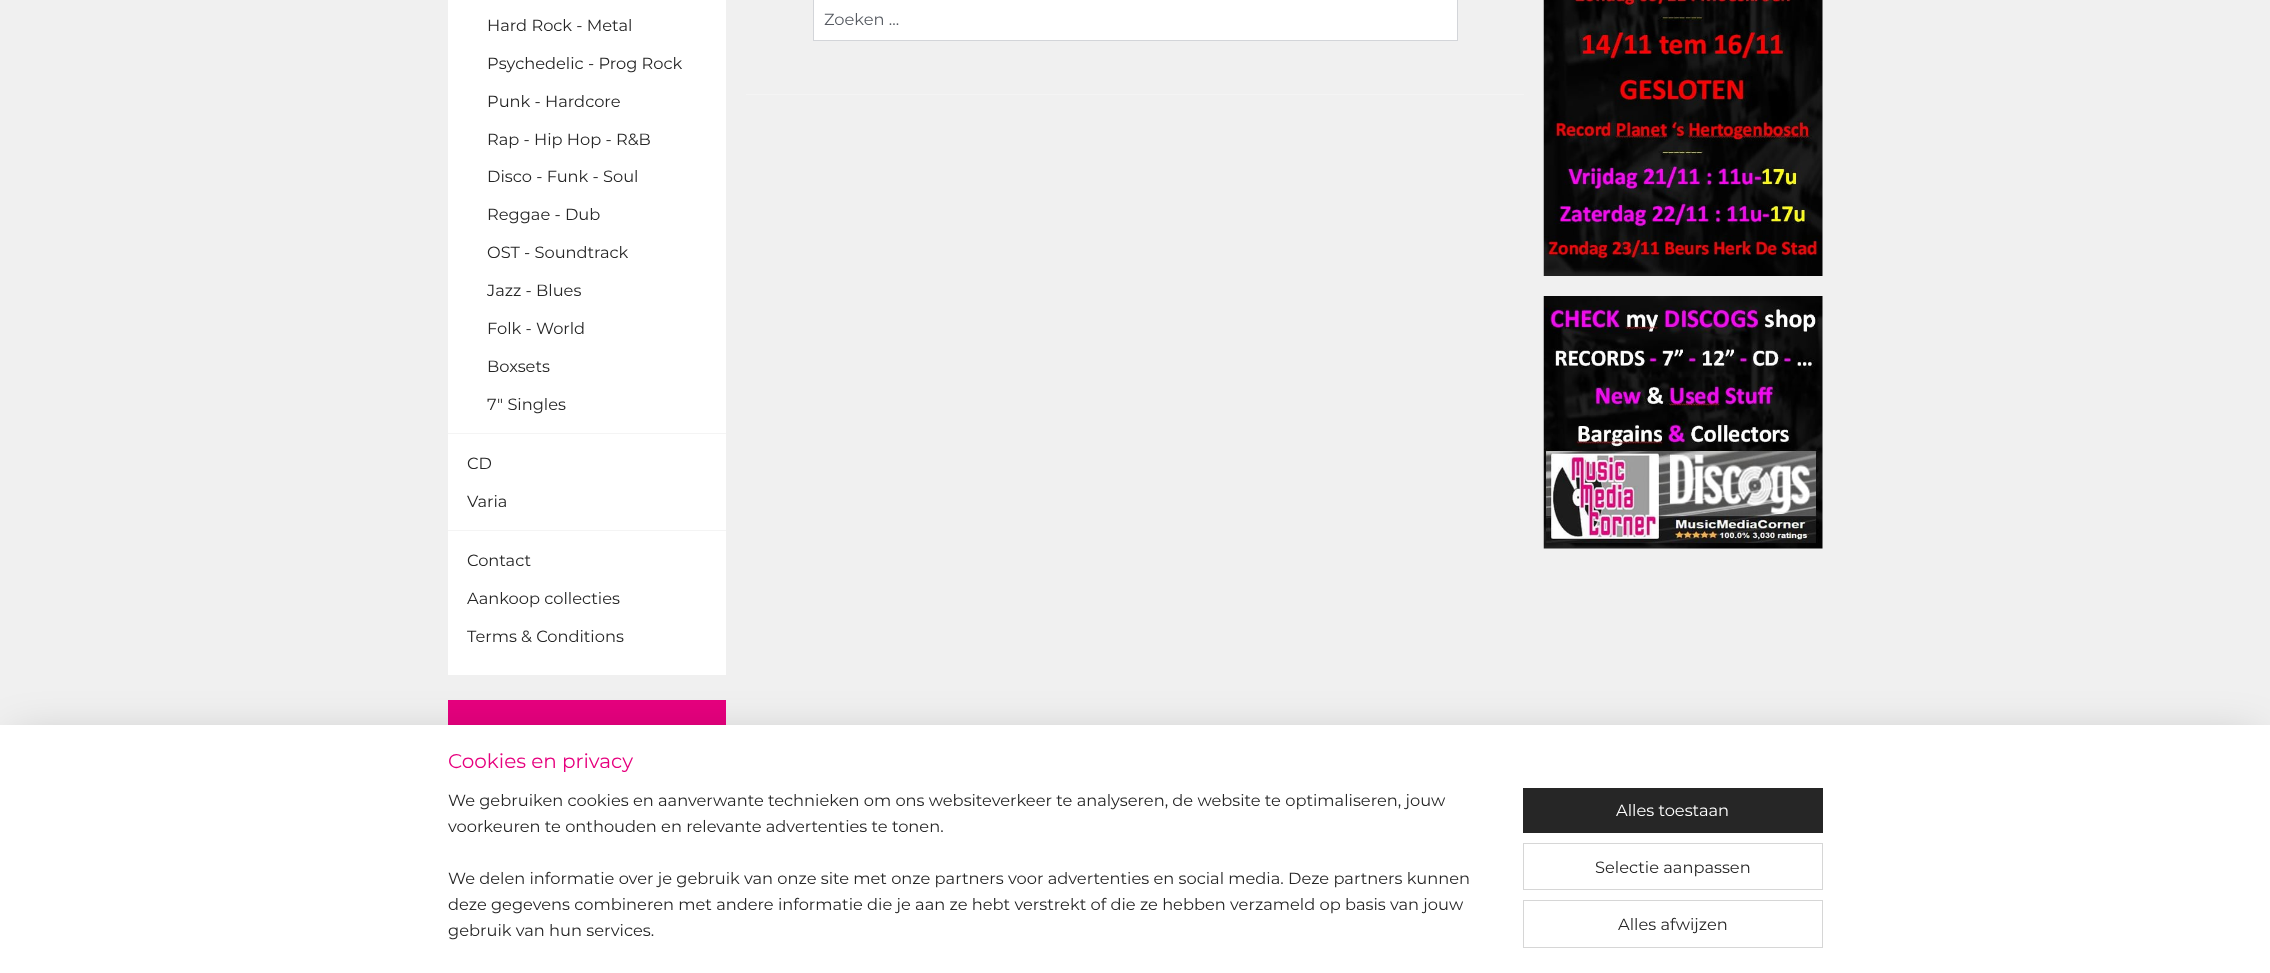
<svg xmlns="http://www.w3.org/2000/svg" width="2270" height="973">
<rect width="100%" height="100%" fill="#f0f0f0"/>
<rect x="448" width="278" height="675" fill="#fff"/>
<text x="487" y="31" style="font-family:Montserrat;font-size:16.25px;fill:#262626">Hard Rock - Metal</text>
<text x="487" y="69" style="font-family:Montserrat;font-size:16.25px;fill:#262626">Psychedelic - Prog Rock</text>
<text x="487" y="107" style="font-family:Montserrat;font-size:16.25px;fill:#262626">Punk - Hardcore</text>
<text x="487" y="145" style="font-family:Montserrat;font-size:16.25px;fill:#262626">Rap - Hip Hop - R&amp;B</text>
<text x="487" y="182" style="font-family:Montserrat;font-size:16.25px;fill:#262626">Disco - Funk - Soul</text>
<text x="487" y="220" style="font-family:Montserrat;font-size:16.25px;fill:#262626">Reggae - Dub</text>
<text x="487" y="258" style="font-family:Montserrat;font-size:16.25px;fill:#262626">OST - Soundtrack</text>
<text x="487" y="296" style="font-family:Montserrat;font-size:16.25px;fill:#262626">Jazz - Blues</text>
<text x="487" y="334" style="font-family:Montserrat;font-size:16.25px;fill:#262626">Folk - World</text>
<text x="487" y="372" style="font-family:Montserrat;font-size:16.25px;fill:#262626">Boxsets</text>
<text x="487" y="410" style="font-family:Montserrat;font-size:16.25px;fill:#262626">7" Singles</text>
<rect x="448" y="433" width="278" height="1" fill="#f4f4f4"/>
<text x="467" y="469" style="font-family:Montserrat;font-size:16.25px;fill:#262626">CD</text>
<text x="467" y="507" style="font-family:Montserrat;font-size:16.25px;fill:#262626">Varia</text>
<rect x="448" y="530" width="278" height="1" fill="#f4f4f4"/>
<text x="467" y="566" style="font-family:Montserrat;font-size:16.25px;fill:#262626">Contact</text>
<text x="467" y="604" style="font-family:Montserrat;font-size:16.25px;fill:#262626">Aankoop collecties</text>
<text x="467" y="642" style="font-family:Montserrat;font-size:16.25px;fill:#262626">Terms &amp; Conditions</text>
<rect x="448" y="700" width="278" height="25" fill="#e6007e"/>
<rect x="746" y="94" width="778" height="1" fill="#f4f4f4"/>
<rect x="813.5" y="-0.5" width="644" height="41" fill="#fff" stroke="#d3d5d9"/>
<text x="824" y="25" style="font-family:Montserrat;font-size:16.25px;fill:#575b62">Zoeken ...</text>
<image x="1543" y="0" width="280" height="276" href="media/1.png"/>
<image x="1543" y="296" width="280" height="253" href="media/2.png"/>
<rect x="13" y="738" width="2245" height="223" fill="#00000033" filter="blur(22.5px)"/>
<rect y="725" width="2270" height="248" fill="#fff"/>
<text x="448" y="768" style="font-family:Montserrat;font-size:20px;fill:#e6007e">Cookies en privacy</text>
<text x="448" y="806" style="font-family:Montserrat;font-size:16.25px;fill:#262626">We gebruiken cookies en aanverwante technieken om ons websiteverkeer te analyseren, de website te optimaliseren, jouw</text>
<text x="448" y="832" style="font-family:Montserrat;font-size:16.25px;fill:#262626">voorkeuren te onthouden en relevante advertenties te tonen.</text>
<text x="448" y="884" style="font-family:Montserrat;font-size:16.25px;fill:#262626">We delen informatie over je gebruik van onze site met onze partners voor advertenties en social media. Deze partners kunnen</text>
<text x="448" y="910" style="font-family:Montserrat;font-size:16.25px;fill:#262626">deze gegevens combineren met andere informatie die je aan ze hebt verstrekt of die ze hebben verzameld op basis van jouw</text>
<text x="448" y="936" style="font-family:Montserrat;font-size:16.25px;fill:#262626">gebruik van hun services.</text>
<rect x="1523" y="788" width="300" height="45" fill="#262626"/>
<text x="1616" y="816" style="font-family:Montserrat;font-size:16.25px;fill:#fff">Alles toestaan</text>
<rect x="1523.5" y="843.5" width="299" height="46" fill="none" stroke="#d6d6d6"/>
<text x="1595" y="873" style="font-family:Montserrat;font-size:16.25px;fill:#262626">Selectie aanpassen</text>
<rect x="1523.5" y="900.5" width="299" height="47" fill="none" stroke="#d6d6d6"/>
<text x="1618" y="930" style="font-family:Montserrat;font-size:16.25px;fill:#262626">Alles afwijzen</text>
</svg>
